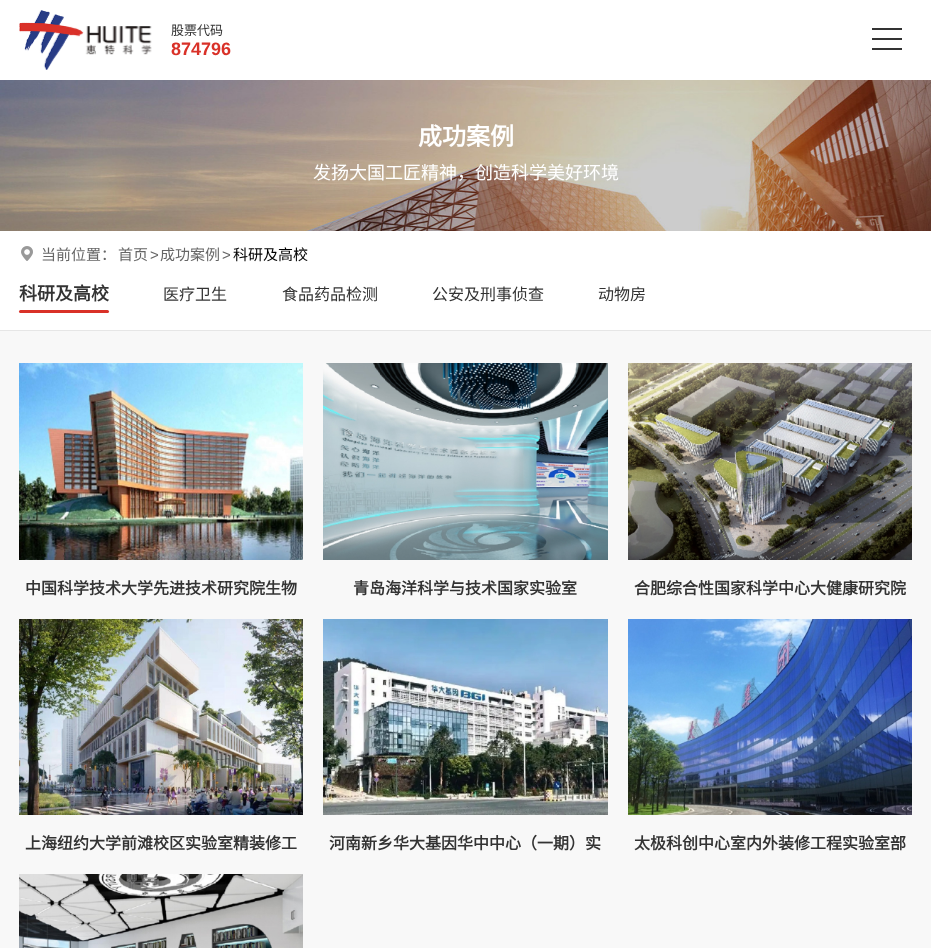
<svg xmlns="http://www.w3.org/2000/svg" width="931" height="948">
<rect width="100%" height="100%" fill="#fff"/>
<image x="19" y="10" width="133" height="60" href="media/1.png"/>
<text x="171" y="35" style="font-family:Noto Sans CJK SC;font-size:13px;fill:#333">股票代码</text>
<text x="171" y="55" style="font-family:Liberation Sans;font-size:18px;font-weight:bold;fill:#d93128">874796</text>
<rect x="872" y="28" width="30" height="2" fill="#333"/>
<rect x="872" y="38" width="30" height="2" fill="#333"/>
<rect x="872" y="48" width="30" height="2" fill="#333"/>
<image x="0" y="80" width="931" height="151" href="media/2.png"/>
<text x="418" y="145" style="font-family:Noto Sans CJK SC;font-size:24px;font-weight:bold;fill:#fff">成功案例</text>
<text x="313" y="179" style="font-family:Noto Sans CJK SC;font-size:18px;fill:#fff">发扬大国工匠精神，创造科学美好环境</text>
<rect y="330" width="931" height="1" fill="#e6e6e6"/>
<image x="21" y="246" width="12" height="15" href="media/3.png"/>
<text x="41" y="260" style="font-family:Noto Sans CJK SC;font-size:15px;fill:#666">当前位置：</text>
<text x="118" y="260" style="font-family:Noto Sans CJK SC;font-size:15px;fill:#666">首页</text>
<text x="150" y="260" style="font-family:Liberation Sans;font-size:15px;fill:#666">&gt;</text>
<text x="160" y="260" style="font-family:Noto Sans CJK SC;font-size:15px;fill:#666">成功案例</text>
<text x="222" y="260" style="font-family:Liberation Sans;font-size:15px;fill:#666">&gt;</text>
<text x="233" y="260" style="font-family:Noto Sans CJK SC;font-size:15px;fill:#000">科研及高校</text>
<text x="19" y="300" style="font-family:Noto Sans CJK SC;font-size:18px;font-weight:bold;fill:#333">科研及高校</text>
<rect x="19" y="310" width="90" height="3" rx="1.5" fill="#d93128"/>
<text x="163" y="300" style="font-family:Noto Sans CJK SC;font-size:16px;fill:#333">医疗卫生</text>
<text x="282" y="300" style="font-family:Noto Sans CJK SC;font-size:16px;fill:#333">食品药品检测</text>
<text x="432" y="300" style="font-family:Noto Sans CJK SC;font-size:16px;fill:#333">公安及刑事侦查</text>
<text x="598" y="300" style="font-family:Noto Sans CJK SC;font-size:16px;fill:#333">动物房</text>
<rect y="331" width="931" height="617" fill="#f8f8f8"/>
<image x="19" y="363" width="284" height="197" href="media/4.png"/>
<text x="25" y="594" style="font-family:Noto Sans CJK SC;font-size:16px;font-weight:bold;fill:#333">中国科学技术大学先进技术研究院生物</text>
<image x="323" y="363" width="285" height="197" href="media/5.png"/>
<text x="353" y="594" style="font-family:Noto Sans CJK SC;font-size:16px;font-weight:bold;fill:#333">青岛海洋科学与技术国家实验室</text>
<image x="628" y="363" width="284" height="197" href="media/6.png"/>
<text x="634" y="594" style="font-family:Noto Sans CJK SC;font-size:16px;font-weight:bold;fill:#333">合肥综合性国家科学中心大健康研究院</text>
<image x="19" y="619" width="284" height="196" href="media/7.png"/>
<text x="25" y="849" style="font-family:Noto Sans CJK SC;font-size:16px;font-weight:bold;fill:#333">上海纽约大学前滩校区实验室精装修工</text>
<image x="323" y="619" width="285" height="196" href="media/8.png"/>
<text x="329" y="849" style="font-family:Noto Sans CJK SC;font-size:16px;font-weight:bold;fill:#333">河南新乡华大基因华中中心（一期）实</text>
<image x="628" y="619" width="284" height="196" href="media/9.png"/>
<text x="634" y="849" style="font-family:Noto Sans CJK SC;font-size:16px;font-weight:bold;fill:#333">太极科创中心室内外装修工程实验室部</text>
<image x="19" y="874" width="284" height="74" href="media/10.png"/>
</svg>
